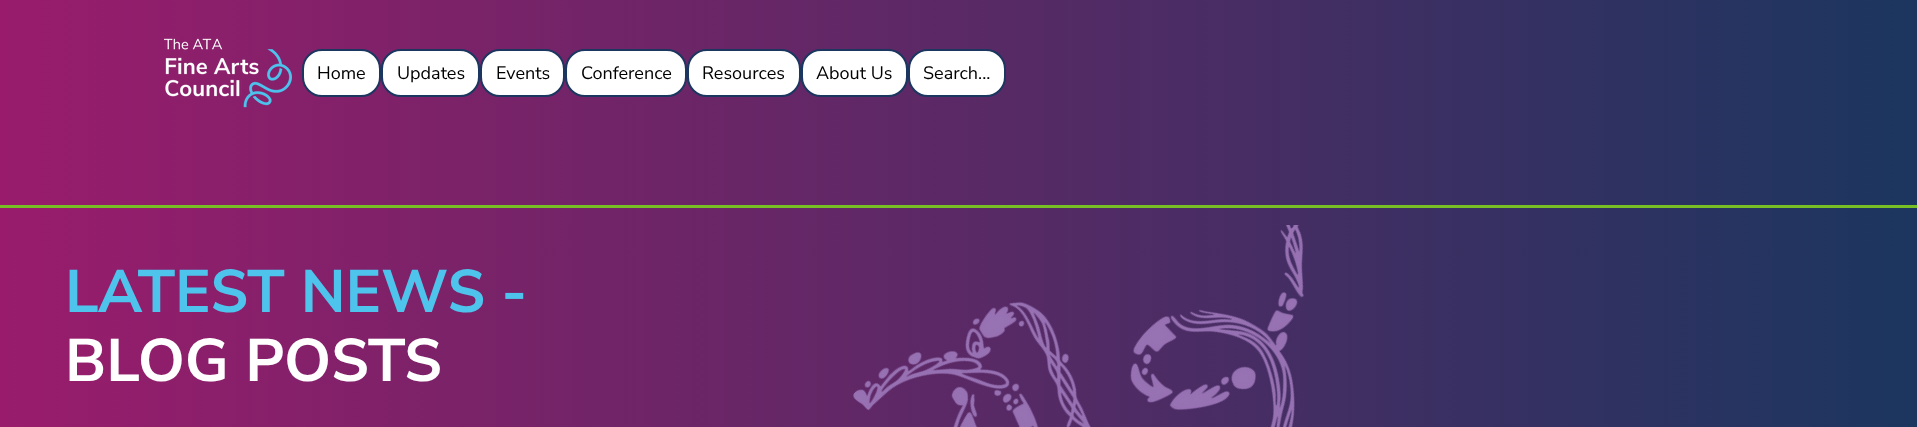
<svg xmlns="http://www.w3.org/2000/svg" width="1917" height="427">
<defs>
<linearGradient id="g1" gradientUnits="userSpaceOnUse" x1="0" y1="113" x2="1917" y2="112"><stop offset="0" stop-color="#991c6c"/><stop offset="1" stop-color="#1b365f"/></linearGradient>
<linearGradient id="g2" gradientUnits="userSpaceOnUse" x1="0" y1="348" x2="1917" y2="347"><stop offset="0" stop-color="#991c6c"/><stop offset="1" stop-color="#1b365f"/></linearGradient>
</defs>
<rect width="100%" height="100%" fill="#fff"/>
<rect width="1917" height="225" fill="url(#g1)"/>
<image x="164" y="38" width="128" height="70" href="media/1.png"/>
<rect x="303" y="50" width="77" height="46" rx="19" fill="#fff" stroke="#1b365f" stroke-width="2"/>
<text x="317" y="79" style="font-family:Nunito Sans;font-size:18px;fill:#000">Home</text>
<rect x="382" y="50" width="97" height="46" rx="19" fill="#fff" stroke="#1b365f" stroke-width="2"/>
<text x="397" y="79" style="font-family:Nunito Sans;font-size:18px;fill:#000">Updates</text>
<rect x="481" y="50" width="83" height="46" rx="19" fill="#fff" stroke="#1b365f" stroke-width="2"/>
<text x="496" y="79" style="font-family:Nunito Sans;font-size:18px;fill:#000">Events</text>
<rect x="566" y="50" width="120" height="46" rx="19" fill="#fff" stroke="#1b365f" stroke-width="2"/>
<text x="581" y="79" style="font-family:Nunito Sans;font-size:18px;fill:#000">Conference</text>
<rect x="688" y="50" width="112" height="46" rx="19" fill="#fff" stroke="#1b365f" stroke-width="2"/>
<text x="702" y="79" style="font-family:Nunito Sans;font-size:18px;fill:#000">Resources</text>
<rect x="802" y="50" width="105" height="46" rx="19" fill="#fff" stroke="#1b365f" stroke-width="2"/>
<text x="816" y="79" style="font-family:Nunito Sans;font-size:18px;fill:#000">About Us</text>
<rect x="909" y="50" width="96" height="46" rx="19" fill="#fff" stroke="#1b365f" stroke-width="2"/>
<text x="923" y="79" style="font-family:Nunito Sans;font-size:18px;fill:#000">Search...</text>
<rect y="205" width="1917" height="3" fill="#78bf26"/>
<rect y="225" width="1917" height="202" fill="url(#g2)"/>
<text x="65" y="312" style="font-family:Nunito Sans;font-size:60px;font-weight:bold;fill:#4ec3ec">LATEST NEWS -</text>
<text x="65" y="381" style="font-family:Nunito Sans;font-size:60px;font-weight:bold;fill:#fff">BLOG POSTS</text>
<image x="853" y="225" width="451" height="202" href="media/2.png"/>
</svg>
